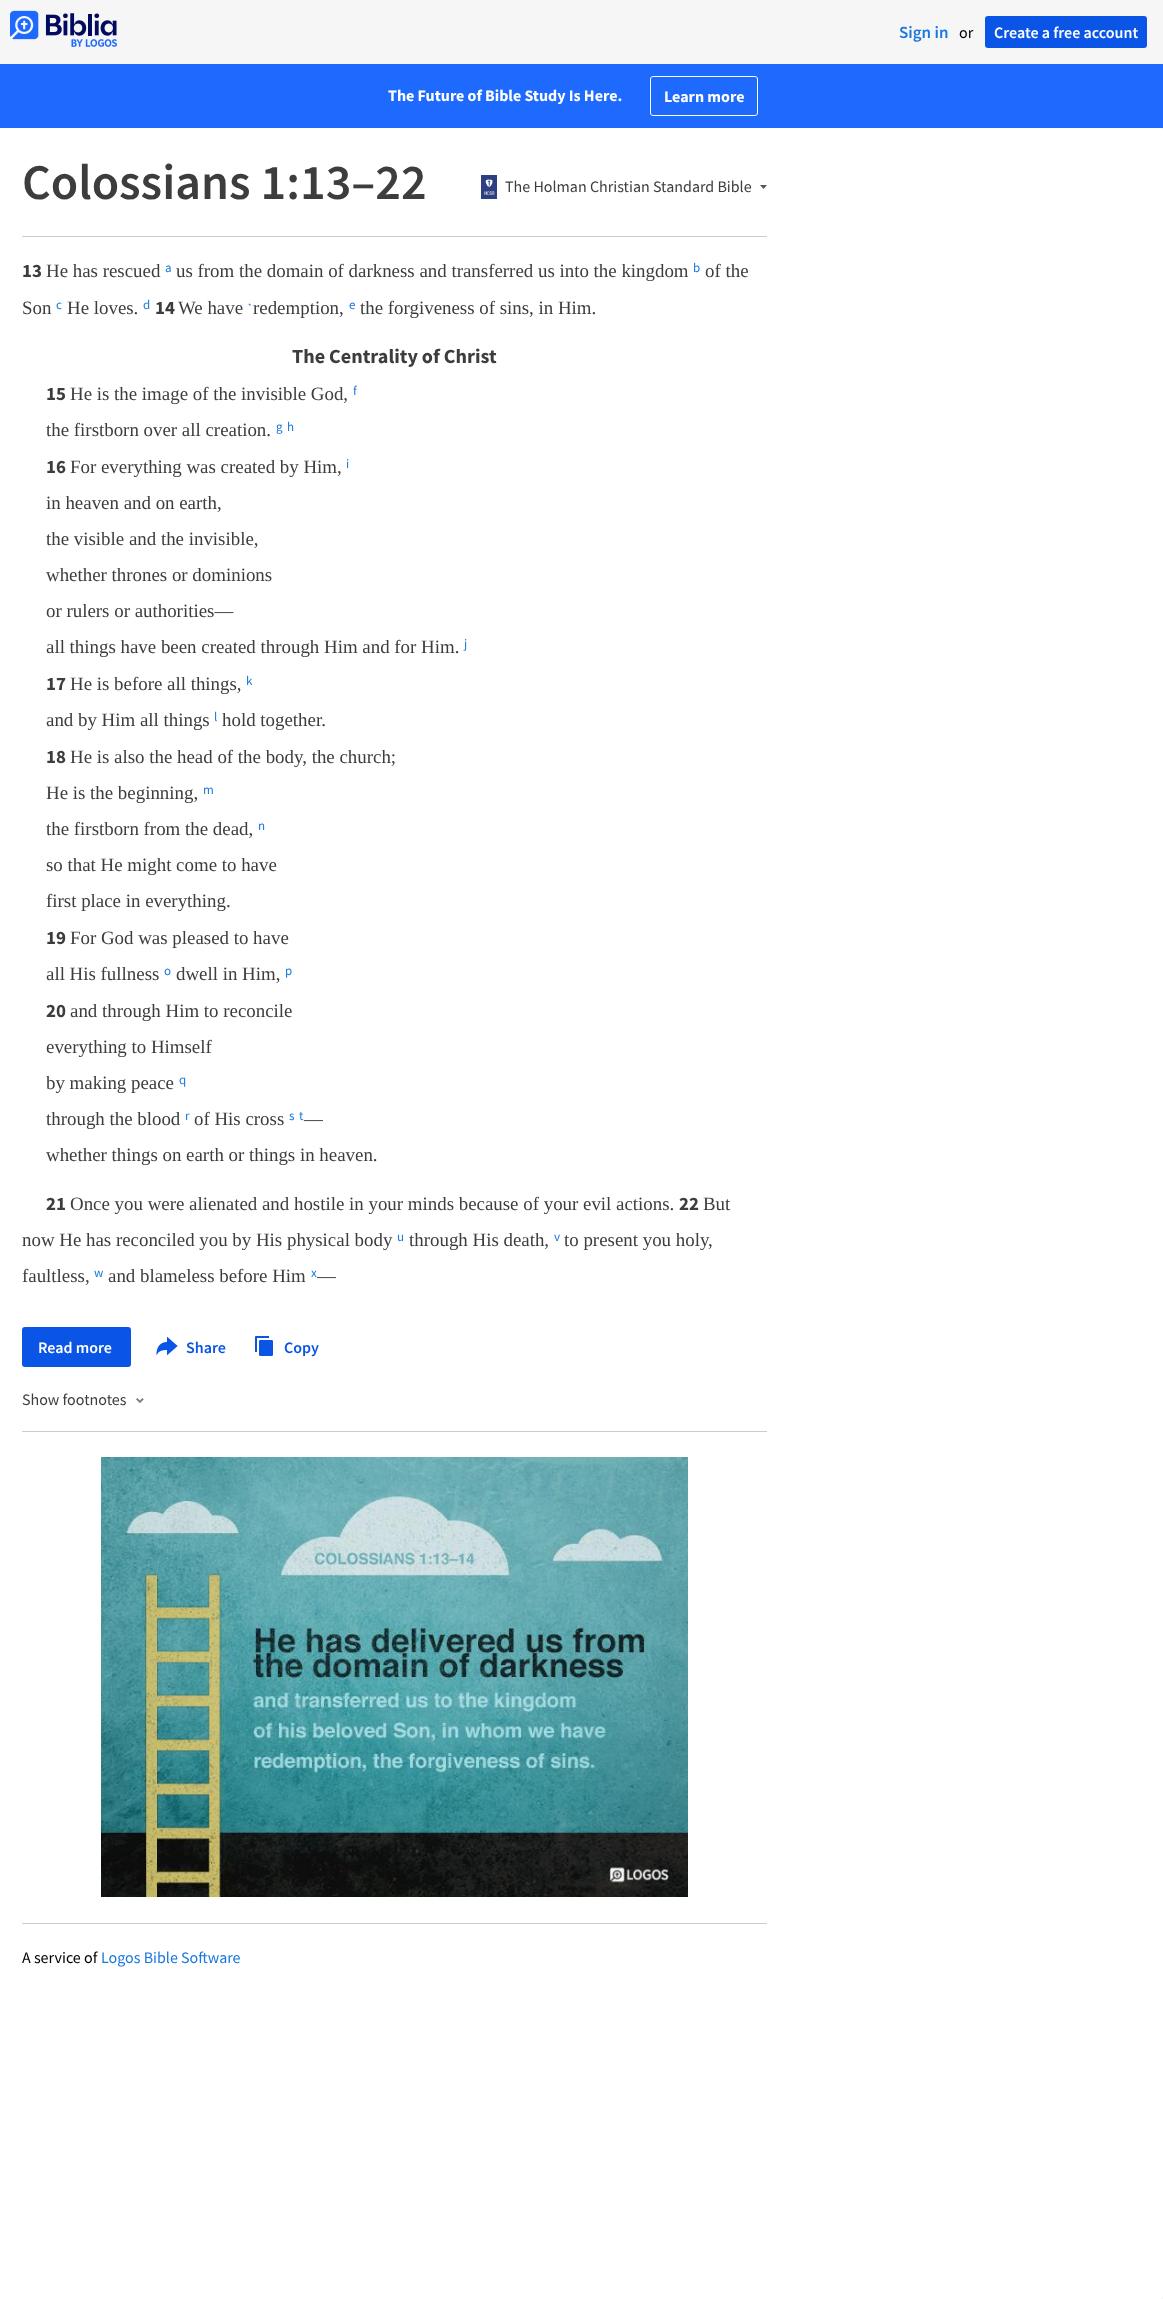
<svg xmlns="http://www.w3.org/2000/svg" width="1163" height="2299">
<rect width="100%" height="100%" fill="#f6f6f6"/>
<image x="10" y="10" width="107" height="37" href="media/1.png"/>
<text x="899" y="38" style="font-family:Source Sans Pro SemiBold;font-size:17px;font-weight:600;fill:#1977de">Sign in</text>
<text x="959" y="38" style="font-family:Source Sans Pro;font-size:16px;fill:#000">or</text>
<rect x="985" y="16" width="162" height="32" rx="3" fill="#0a55e6"/>
<text x="994" y="38" style="font-family:Source Sans Pro SemiBold;font-size:16px;font-weight:600;fill:#fff">Create a free account</text>
<rect y="64" width="1163" height="64" fill="#1e6afe"/>
<text x="388" y="101" style="font-family:Source Sans Pro;font-size:16px;font-weight:bold;fill:#fff">The Future of Bible Study Is Here.</text>
<rect x="650.5" y="76.5" width="107" height="39" rx="2.5" fill="none" stroke="#fff"/>
<text x="664" y="102" style="font-family:Source Sans Pro;font-size:16px;font-weight:bold;fill:#fff">Learn more</text>
<rect x="-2" y="128" width="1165" height="2171" rx="4" fill="#fff"/>
<rect x="22" y="236" width="745" height="1" fill="#ccc"/>
<text x="22" y="199" style="font-family:Source Sans Pro SemiBold;font-size:50px;font-weight:600;fill:#3d3d3d">Colossians 1:13–22</text>
<image x="481" y="175" width="16" height="24" href="media/2.png"/>
<text x="505" y="192" style="font-family:Source Sans Pro;font-size:16px;fill:#3d3d3d">The Holman Christian Standard Bible</text>
<path d="M763.5 189l3.5-4h-7z" fill="#585858" fill-rule="evenodd"/>
<text x="22" y="277" style="font-family:Source Sans Pro;font-size:18.9px;font-weight:bold;fill:#3d3d3d">13</text>
<text x="46" y="277" style="font-family:Liberation Serif;font-size:18.9px;fill:#3d3d3d">He has rescued</text>
<text x="165" y="272" style="font-family:Source Sans Pro;font-size:13px;fill:#1977de">a</text>
<text x="176" y="277" style="font-family:Liberation Serif;font-size:18.9px;fill:#3d3d3d">us from the domain of darkness and transferred us into the kingdom</text>
<text x="693" y="272" style="font-family:Source Sans Pro;font-size:13px;fill:#1977de">b</text>
<text x="705" y="277" style="font-family:Liberation Serif;font-size:18.9px;fill:#3d3d3d">of the</text>
<text x="22" y="314" style="font-family:Liberation Serif;font-size:18.9px;fill:#3d3d3d">Son</text>
<text x="56" y="309" style="font-family:Source Sans Pro;font-size:13px;fill:#1977de">c</text>
<text x="67" y="314" style="font-family:Liberation Serif;font-size:18.9px;fill:#3d3d3d">He loves.</text>
<text x="143" y="309" style="font-family:Source Sans Pro;font-size:13px;fill:#1977de">d</text>
<text x="155" y="314" style="font-family:Source Sans Pro;font-size:18.9px;font-weight:bold;fill:#3d3d3d">14</text>
<text x="178" y="314" style="font-family:Liberation Serif;font-size:18.9px;fill:#3d3d3d">We have</text>
<text x="248" y="309" style="font-family:Source Sans Pro;font-size:8px;fill:#1977de">*</text>
<text x="253" y="314" style="font-family:Liberation Serif;font-size:18.9px;fill:#3d3d3d">redemption,</text>
<text x="349" y="309" style="font-family:Source Sans Pro;font-size:13px;fill:#1977de">e</text>
<text x="360" y="314" style="font-family:Liberation Serif;font-size:18.9px;fill:#3d3d3d">the forgiveness of sins, in Him.</text>
<text x="292" y="363" style="font-family:Source Sans Pro;font-size:20.1px;font-weight:bold;fill:#3d3d3d">The Centrality of Christ</text>
<text x="46" y="400" style="font-family:Source Sans Pro;font-size:18.9px;font-weight:bold;fill:#3d3d3d">15</text>
<text x="70" y="400" style="font-family:Liberation Serif;font-size:18.9px;fill:#3d3d3d">He is the image of the invisible God,</text>
<text x="353" y="395" style="font-family:Source Sans Pro;font-size:13px;fill:#1977de">f</text>
<text x="46" y="436" style="font-family:Liberation Serif;font-size:18.9px;fill:#3d3d3d">the firstborn over all creation.</text>
<text x="276" y="431" style="font-family:Source Sans Pro;font-size:13px;fill:#1977de">g</text>
<text x="287" y="431" style="font-family:Source Sans Pro;font-size:13px;fill:#1977de">h</text>
<text x="46" y="473" style="font-family:Source Sans Pro;font-size:18.9px;font-weight:bold;fill:#3d3d3d">16</text>
<text x="70" y="473" style="font-family:Liberation Serif;font-size:18.9px;fill:#3d3d3d">For everything was created by Him,</text>
<text x="346" y="468" style="font-family:Source Sans Pro;font-size:13px;fill:#1977de">i</text>
<text x="46" y="509" style="font-family:Liberation Serif;font-size:18.9px;fill:#3d3d3d">in heaven and on earth,</text>
<text x="46" y="545" style="font-family:Liberation Serif;font-size:18.9px;fill:#3d3d3d">the visible and the invisible,</text>
<text x="46" y="581" style="font-family:Liberation Serif;font-size:18.9px;fill:#3d3d3d">whether thrones or dominions</text>
<text x="46" y="617" style="font-family:Liberation Serif;font-size:18.9px;fill:#3d3d3d">or rulers or authorities—</text>
<text x="46" y="653" style="font-family:Liberation Serif;font-size:18.9px;fill:#3d3d3d">all things have been created through Him and for Him.</text>
<text x="464" y="648" style="font-family:Source Sans Pro;font-size:13px;fill:#1977de">j</text>
<text x="46" y="690" style="font-family:Source Sans Pro;font-size:18.9px;font-weight:bold;fill:#3d3d3d">17</text>
<text x="70" y="690" style="font-family:Liberation Serif;font-size:18.9px;fill:#3d3d3d">He is before all things,</text>
<text x="246" y="685" style="font-family:Source Sans Pro;font-size:13px;fill:#1977de">k</text>
<text x="46" y="726" style="font-family:Liberation Serif;font-size:18.9px;fill:#3d3d3d">and by Him all things</text>
<text x="214" y="721" style="font-family:Source Sans Pro;font-size:13px;fill:#1977de">l</text>
<text x="222" y="726" style="font-family:Liberation Serif;font-size:18.9px;fill:#3d3d3d">hold together.</text>
<text x="46" y="763" style="font-family:Source Sans Pro;font-size:18.9px;font-weight:bold;fill:#3d3d3d">18</text>
<text x="70" y="763" style="font-family:Liberation Serif;font-size:18.9px;fill:#3d3d3d">He is also the head of the body, the church;</text>
<text x="46" y="799" style="font-family:Liberation Serif;font-size:18.9px;fill:#3d3d3d">He is the beginning,</text>
<text x="203" y="794" style="font-family:Source Sans Pro;font-size:13px;fill:#1977de">m</text>
<text x="46" y="835" style="font-family:Liberation Serif;font-size:18.9px;fill:#3d3d3d">the firstborn from the dead,</text>
<text x="258" y="830" style="font-family:Source Sans Pro;font-size:13px;fill:#1977de">n</text>
<text x="46" y="871" style="font-family:Liberation Serif;font-size:18.9px;fill:#3d3d3d">so that He might come to have</text>
<text x="46" y="907" style="font-family:Liberation Serif;font-size:18.9px;fill:#3d3d3d">first place in everything.</text>
<text x="46" y="944" style="font-family:Source Sans Pro;font-size:18.9px;font-weight:bold;fill:#3d3d3d">19</text>
<text x="70" y="944" style="font-family:Liberation Serif;font-size:18.9px;fill:#3d3d3d">For God was pleased to have</text>
<text x="46" y="980" style="font-family:Liberation Serif;font-size:18.9px;fill:#3d3d3d">all His fullness</text>
<text x="164" y="975" style="font-family:Source Sans Pro;font-size:13px;fill:#1977de">o</text>
<text x="176" y="980" style="font-family:Liberation Serif;font-size:18.9px;fill:#3d3d3d">dwell in Him,</text>
<text x="285" y="975" style="font-family:Source Sans Pro;font-size:13px;fill:#1977de">p</text>
<text x="46" y="1017" style="font-family:Source Sans Pro;font-size:18.9px;font-weight:bold;fill:#3d3d3d">20</text>
<text x="70" y="1017" style="font-family:Liberation Serif;font-size:18.9px;fill:#3d3d3d">and through Him to reconcile</text>
<text x="46" y="1053" style="font-family:Liberation Serif;font-size:18.9px;fill:#3d3d3d">everything to Himself</text>
<text x="46" y="1089" style="font-family:Liberation Serif;font-size:18.9px;fill:#3d3d3d">by making peace</text>
<text x="179" y="1084" style="font-family:Source Sans Pro;font-size:13px;fill:#1977de">q</text>
<text x="46" y="1125" style="font-family:Liberation Serif;font-size:18.9px;fill:#3d3d3d">through the blood</text>
<text x="185" y="1120" style="font-family:Source Sans Pro;font-size:13px;fill:#1977de">r</text>
<text x="194" y="1125" style="font-family:Liberation Serif;font-size:18.9px;fill:#3d3d3d">of His cross</text>
<text x="289" y="1120" style="font-family:Source Sans Pro;font-size:13px;fill:#1977de">s</text>
<text x="299" y="1120" style="font-family:Source Sans Pro;font-size:13px;fill:#1977de">t</text>
<text x="304" y="1125" style="font-family:Liberation Serif;font-size:18.9px;fill:#3d3d3d">—</text>
<text x="46" y="1161" style="font-family:Liberation Serif;font-size:18.9px;fill:#3d3d3d">whether things on earth or things in heaven.</text>
<text x="46" y="1210" style="font-family:Source Sans Pro;font-size:18.9px;font-weight:bold;fill:#3d3d3d">21</text>
<text x="70" y="1210" style="font-family:Liberation Serif;font-size:18.9px;fill:#3d3d3d">Once you were alienated and hostile in your minds because of your evil actions.</text>
<text x="679" y="1210" style="font-family:Source Sans Pro;font-size:18.9px;font-weight:bold;fill:#3d3d3d">22</text>
<text x="703" y="1210" style="font-family:Liberation Serif;font-size:18.9px;fill:#3d3d3d">But</text>
<text x="22" y="1246" style="font-family:Liberation Serif;font-size:18.9px;fill:#3d3d3d">now He has reconciled you by His physical body</text>
<text x="397" y="1241" style="font-family:Source Sans Pro;font-size:13px;fill:#1977de">u</text>
<text x="409" y="1246" style="font-family:Liberation Serif;font-size:18.9px;fill:#3d3d3d">through His death,</text>
<text x="554" y="1241" style="font-family:Source Sans Pro;font-size:13px;fill:#1977de">v</text>
<text x="564" y="1246" style="font-family:Liberation Serif;font-size:18.9px;fill:#3d3d3d">to present you holy,</text>
<text x="22" y="1282" style="font-family:Liberation Serif;font-size:18.9px;fill:#3d3d3d">faultless,</text>
<text x="94" y="1277" style="font-family:Source Sans Pro;font-size:13px;fill:#1977de">w</text>
<text x="108" y="1282" style="font-family:Liberation Serif;font-size:18.9px;fill:#3d3d3d">and blameless before Him</text>
<text x="311" y="1277" style="font-family:Source Sans Pro;font-size:13px;fill:#1977de">x</text>
<text x="317" y="1282" style="font-family:Liberation Serif;font-size:18.9px;fill:#3d3d3d">—</text>
<rect x="22" y="1327" width="109" height="40" rx="3" fill="#0a55e6"/>
<text x="38" y="1353" style="font-family:Source Sans Pro SemiBold;font-size:16px;font-weight:600;fill:#fff">Read more</text>
<image x="156" y="1336" width="22" height="20" href="media/3.png"/>
<text x="186" y="1353" style="font-family:Source Sans Pro SemiBold;font-size:16px;font-weight:600;fill:#0a55e6">Share</text>
<image x="255" y="1336" width="18" height="20" href="media/4.png"/>
<text x="284" y="1353" style="font-family:Source Sans Pro SemiBold;font-size:16px;font-weight:600;fill:#0a55e6">Copy</text>
<text x="22" y="1405" style="font-family:Source Sans Pro;font-size:16px;fill:#3d3d3d">Show footnotes</text>
<image x="136" y="1398" width="8" height="6" href="media/5.png"/>
<rect x="22" y="1431" width="745" height="1" fill="#ccc"/>
<image x="101" y="1457" width="587" height="440" href="media/6.png"/>
<rect x="22" y="1923" width="745" height="1" fill="#ccc"/>
<text x="22" y="1963" style="font-family:Source Sans Pro;font-size:16px;fill:#000">A service of</text>
<text x="101" y="1963" style="font-family:Source Sans Pro;font-size:16px;fill:#1977de">Logos Bible Software</text>
</svg>
